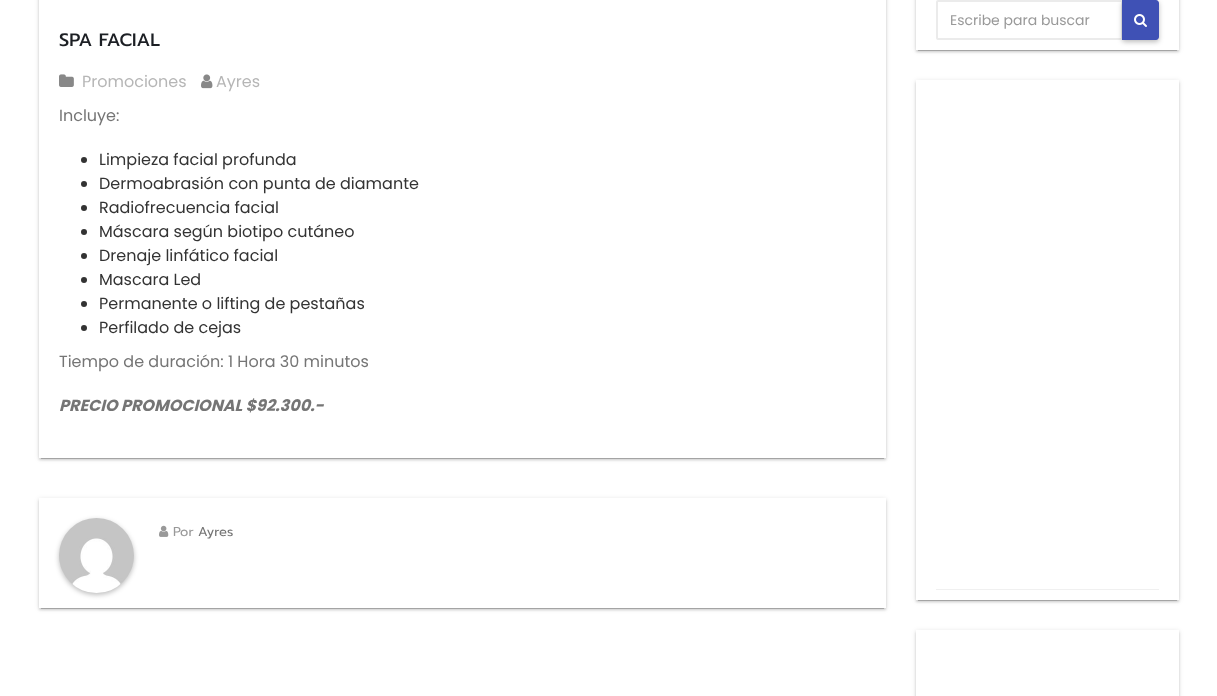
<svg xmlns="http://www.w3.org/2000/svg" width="1217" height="696">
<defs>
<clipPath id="clip1"><path d="M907 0h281v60h-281zm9-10h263v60h-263z" clip-rule="evenodd"/></clipPath>
<clipPath id="clip2"><rect x="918" y="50" width="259" height="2"/></clipPath>
<clipPath id="clip3"><path d="M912 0h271v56h-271zm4-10h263v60h-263z" clip-rule="evenodd"/></clipPath>
<clipPath id="clip4"><path d="M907 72h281v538h-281zm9 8h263v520h-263z" clip-rule="evenodd"/></clipPath>
<clipPath id="clip5"><rect x="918" y="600" width="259" height="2"/></clipPath>
<clipPath id="clip6"><path d="M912 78h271v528h-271zm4 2h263v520h-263z" clip-rule="evenodd"/></clipPath>
<clipPath id="clip7"><path d="M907 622h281v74h-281zm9 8h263v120h-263z" clip-rule="evenodd"/></clipPath>
<clipPath id="clip8"><path d="M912 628h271v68h-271zm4 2h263v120h-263z" clip-rule="evenodd"/></clipPath>
<clipPath id="clip9"><path d="M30 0h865v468h-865zm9-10h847v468h-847z" clip-rule="evenodd"/></clipPath>
<clipPath id="clip10"><rect x="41" y="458" width="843" height="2"/></clipPath>
<clipPath id="clip11"><path d="M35 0h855v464h-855zm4-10h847v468h-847z" clip-rule="evenodd"/></clipPath>
<clipPath id="clip12"><path d="M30 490h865v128h-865zm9 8h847v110h-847z" clip-rule="evenodd"/></clipPath>
<clipPath id="clip13"><rect x="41" y="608" width="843" height="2"/></clipPath>
<clipPath id="clip14"><path d="M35 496h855v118h-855zm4 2h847v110h-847z" clip-rule="evenodd"/></clipPath>
</defs>
<rect width="100%" height="100%" fill="#fff"/>
<g clip-path="url(#clip1)">
<rect x="916" y="-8" width="263" height="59" fill="#0000001f" filter="blur(2.5px)"/>
</g>
<g clip-path="url(#clip2)">
<rect x="918" y="-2" width="259" height="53" fill="#00000033" filter="blur(0.5px)"/>
</g>
<g clip-path="url(#clip3)">
<rect x="916" y="-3" width="263" height="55" fill="#00000024" filter="blur(1px)"/>
</g>
<path d="M938 1h184v38h-184c-.5 0-1-.5-1-1v-36c0-.5 .5-1 1-1z" fill="none" stroke="#ebebeb" stroke-width="2"/>
<text x="950" y="25" style="font-family:Poppins;font-size:14px;fill:#999">Escribe para buscar</text>
<rect x="1122" y="2" width="37" height="40" rx="3" fill="#00000042" filter="blur(2.5px)"/>
<path d="M1122 0h34c1.5 0 3 1.5 3 3v34c0 1.5-1.5 3-3 3h-34z" fill="#3f51b5"/>
<image x="1134" y="14" width="13" height="13" href="media/1.png"/>
<g clip-path="url(#clip4)">
<rect x="916" y="81" width="263" height="520" fill="#0000001f" filter="blur(2.5px)"/>
</g>
<g clip-path="url(#clip5)">
<rect x="918" y="85" width="259" height="516" fill="#00000033" filter="blur(0.5px)"/>
</g>
<g clip-path="url(#clip6)">
<rect x="916" y="82" width="263" height="520" fill="#00000024" filter="blur(1px)"/>
</g>
<rect x="936" y="589" width="223" height="1" fill="#f0f0f0"/>
<g clip-path="url(#clip7)">
<rect x="916" y="631" width="263" height="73" fill="#0000001f" filter="blur(2.5px)"/>
</g>
<g clip-path="url(#clip8)">
<rect x="916" y="632" width="263" height="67" fill="#00000024" filter="blur(1px)"/>
</g>
<g clip-path="url(#clip9)">
<rect x="39" y="-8" width="847" height="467" fill="#0000001f" filter="blur(2.5px)"/>
</g>
<g clip-path="url(#clip10)">
<rect x="41" y="-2" width="843" height="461" fill="#00000033" filter="blur(0.5px)"/>
</g>
<g clip-path="url(#clip11)">
<rect x="39" y="-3" width="847" height="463" fill="#00000024" filter="blur(1px)"/>
</g>
<text x="59" y="46" style="font-family:Prompt;font-size:18px;font-weight:500;fill:#1c1f24">SPA FACIAL</text>
<image x="59" y="74" width="15" height="13" href="media/2.png"/>
<text x="82" y="87" style="font-family:Poppins;font-size:16px;fill:#b6b6b6">Promociones</text>
<image x="201" y="74" width="12" height="15" href="media/3.png"/>
<text x="216" y="87" style="font-family:Poppins;font-size:16px;fill:#b6b6b6">Ayres</text>
<text x="59" y="121" style="font-family:Poppins;font-size:16px;fill:#757575">Incluye:</text>
<circle cx="84" cy="160" r="3" fill="#333"/>
<text x="99" y="165" style="font-family:Poppins;font-size:16px;fill:#333">Limpieza facial profunda</text>
<circle cx="84" cy="184" r="3" fill="#333"/>
<text x="99" y="189" style="font-family:Poppins;font-size:16px;fill:#333">Dermoabrasión con punta de diamante</text>
<circle cx="84" cy="208" r="3" fill="#333"/>
<text x="99" y="213" style="font-family:Poppins;font-size:16px;fill:#333">Radiofrecuencia facial</text>
<circle cx="84" cy="232" r="3" fill="#333"/>
<text x="99" y="237" style="font-family:Poppins;font-size:16px;fill:#333">Máscara según biotipo cutáneo</text>
<circle cx="84" cy="256" r="3" fill="#333"/>
<text x="99" y="261" style="font-family:Poppins;font-size:16px;fill:#333">Drenaje linfático facial</text>
<circle cx="84" cy="280" r="3" fill="#333"/>
<text x="99" y="285" style="font-family:Poppins;font-size:16px;fill:#333">Mascara Led</text>
<circle cx="84" cy="304" r="3" fill="#333"/>
<text x="99" y="309" style="font-family:Poppins;font-size:16px;fill:#333">Permanente o lifting de pestañas</text>
<circle cx="84" cy="328" r="3" fill="#333"/>
<text x="99" y="333" style="font-family:Poppins;font-size:16px;fill:#333">Perfilado de cejas</text>
<text x="59" y="367" style="font-family:Poppins;font-size:16px;fill:#757575">Tiempo de duración: 1 Hora 30 minutos</text>
<text x="59" y="411" style="font-family:Poppins;font-size:16px;font-weight:bold;font-style:italic;fill:#757575">PRECIO PROMOCIONAL $92.300.-</text>
<g clip-path="url(#clip12)">
<rect x="39" y="499" width="847" height="110" fill="#0000001f" filter="blur(2.5px)"/>
</g>
<g clip-path="url(#clip13)">
<rect x="41" y="503" width="843" height="106" fill="#00000033" filter="blur(0.5px)"/>
</g>
<g clip-path="url(#clip14)">
<rect x="39" y="500" width="847" height="110" fill="#00000024" filter="blur(1px)"/>
</g>
<rect x="59" y="520" width="75" height="75" rx="37.5" fill="#00000042" filter="blur(2.5px)"/>
<image x="59" y="518" width="75" height="75" href="media/4.png"/>
<image x="159" y="525" width="10" height="12" href="media/5.png"/>
<text x="173" y="536" style="font-family:Prompt;font-size:13px;fill:#999">Por</text>
<text x="198" y="536" style="font-family:Prompt;font-size:13px;fill:#757575">Ayres</text>
</svg>
